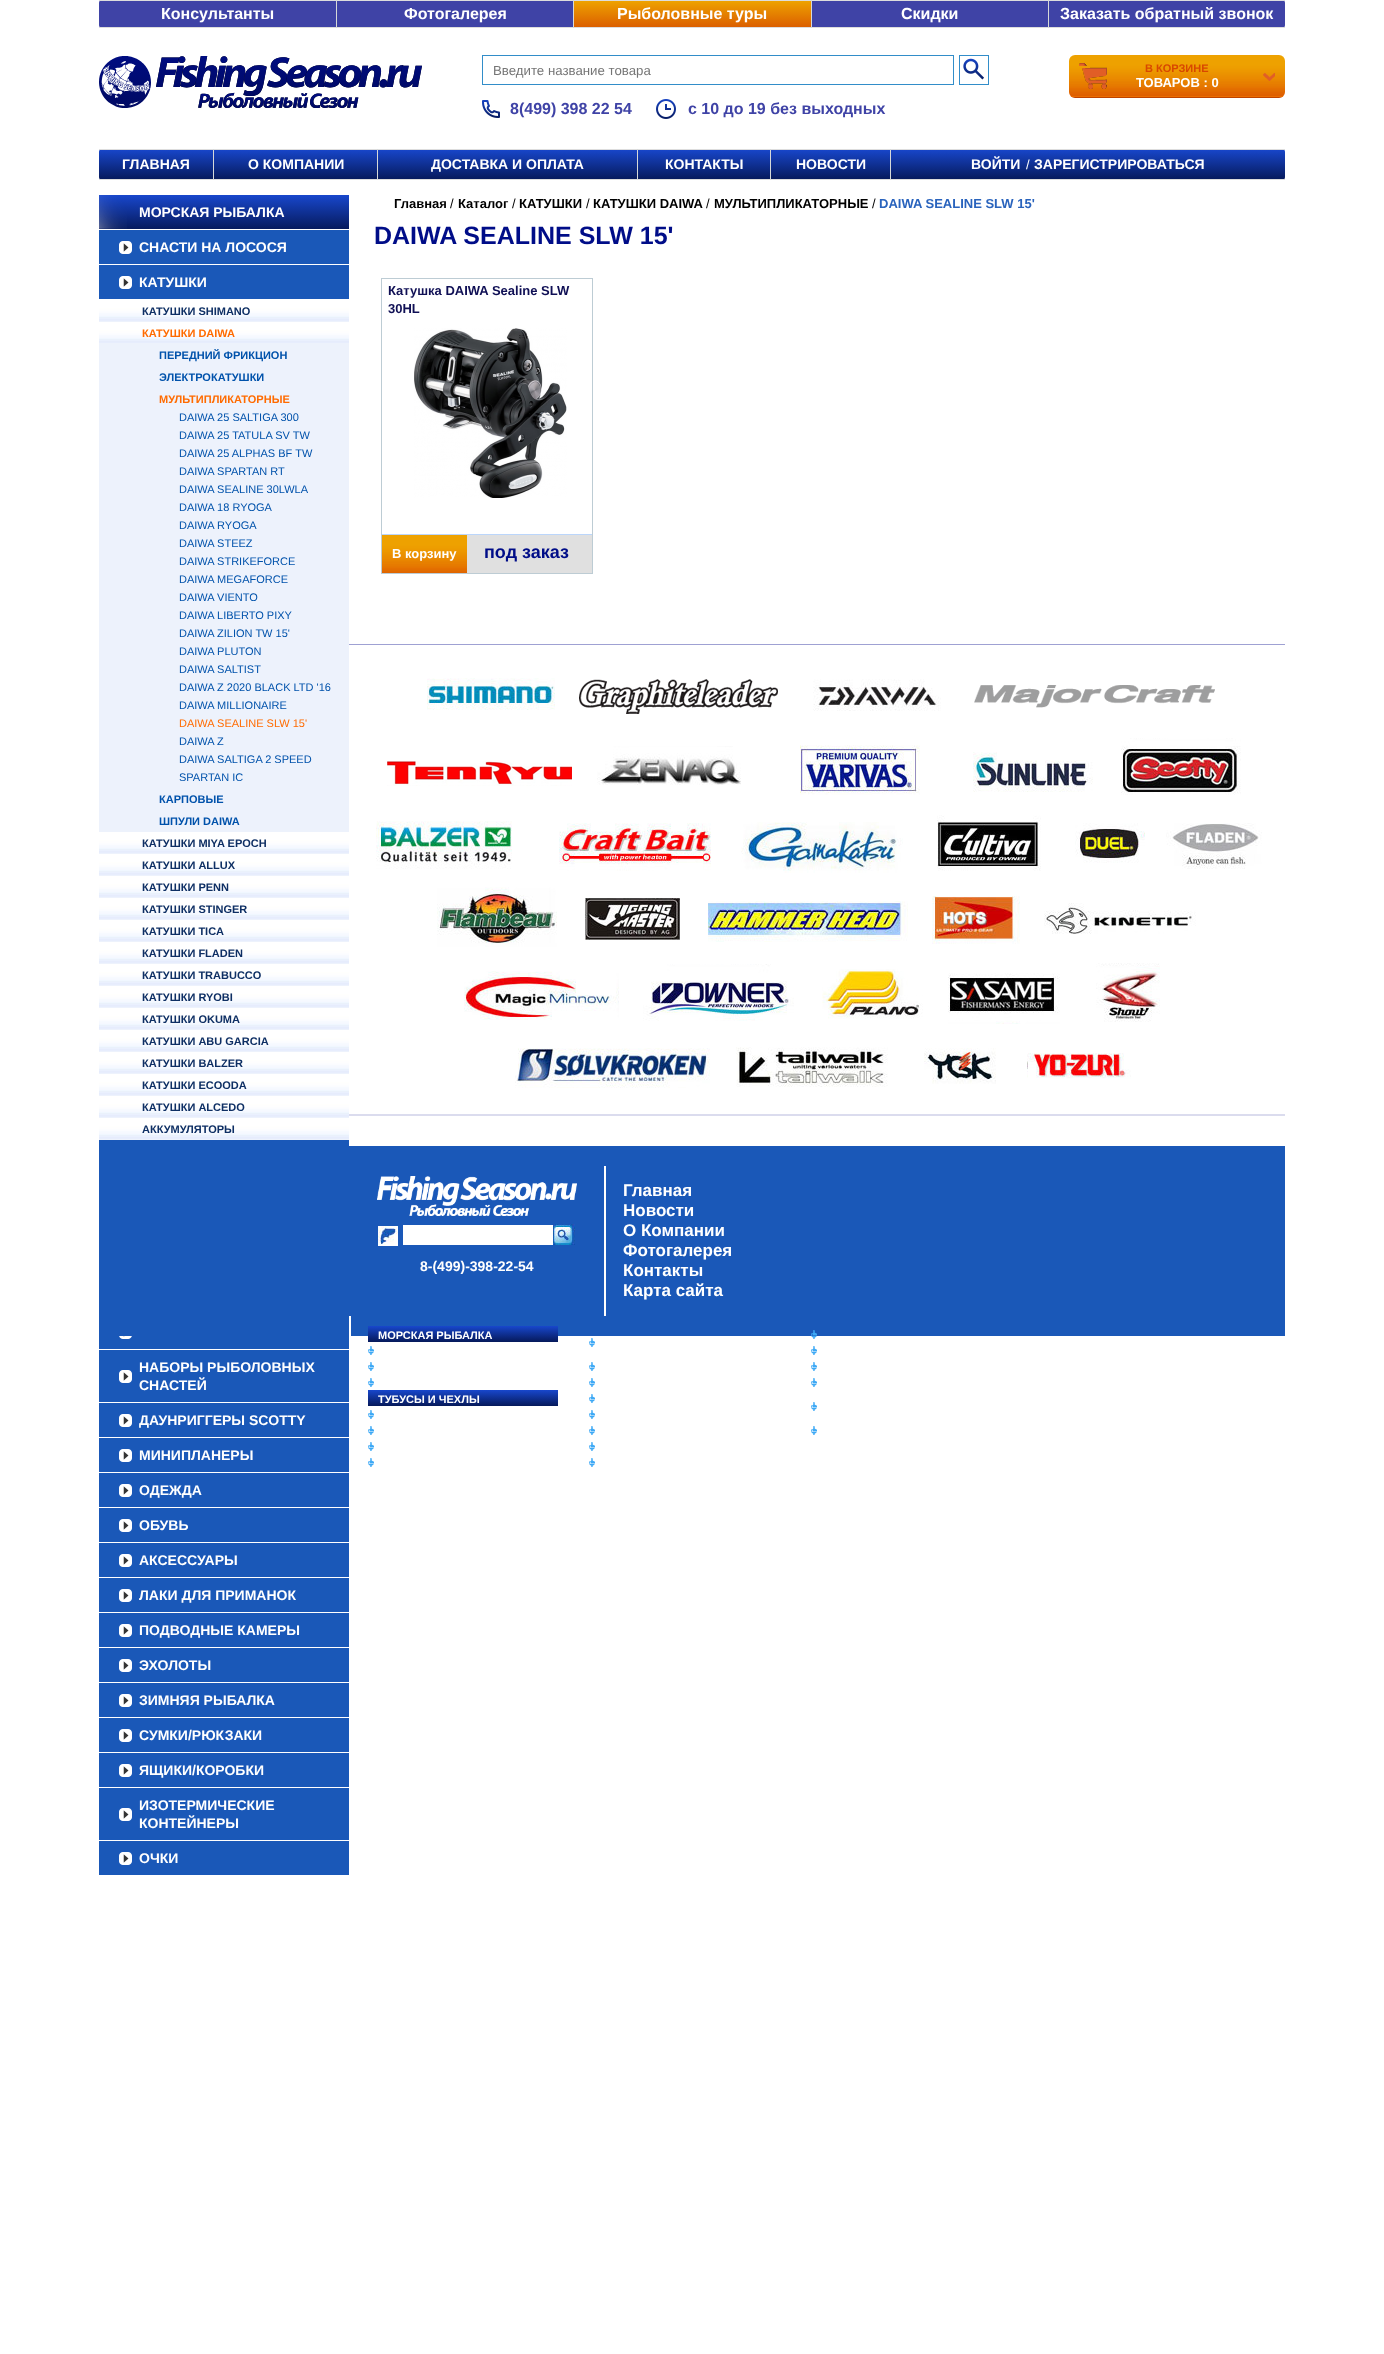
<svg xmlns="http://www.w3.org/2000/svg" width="1384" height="2354">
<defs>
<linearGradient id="g1" gradientUnits="userSpaceOnUse" x1="693" y1="1" x2="693" y2="27"><stop offset="0" stop-color="#eea200"/><stop offset="1" stop-color="#db5f00"/></linearGradient>
<linearGradient id="g2" gradientUnits="userSpaceOnUse" x1="692" y1="149" x2="692" y2="180"><stop offset="0" stop-color="#1847cc"/><stop offset="1" stop-color="#06195a"/></linearGradient>
<linearGradient id="g3" gradientUnits="userSpaceOnUse" x1="224" y1="195" x2="224" y2="230"><stop offset="0" stop-color="#1847cc"/><stop offset="1" stop-color="#06195a"/></linearGradient>
<linearGradient id="g4" gradientUnits="userSpaceOnUse" x1="463" y1="1326" x2="463" y2="1342"><stop offset="0" stop-color="#1847cc"/><stop offset="1" stop-color="#06195a"/></linearGradient>
<linearGradient id="g5" gradientUnits="userSpaceOnUse" x1="463" y1="1390" x2="463" y2="1406"><stop offset="0" stop-color="#1847cc"/><stop offset="1" stop-color="#06195a"/></linearGradient>
</defs>
<rect width="100%" height="100%" fill="#fff"/>
<rect x="99" width="1186" height="28" rx="3" fill="#3f43a6"/>
<rect x="99" width="1186" height="1" fill="#ddd"/>
<rect x="99" y="27" width="1186" height="1" fill="#ddd"/>
<text x="161" y="19" style="font-family:Liberation Sans;font-size:16px;font-weight:bold;fill:#fff">Консультанты</text>
<rect x="336" width="1" height="28" fill="#d6d9d8"/>
<text x="404" y="19" style="font-family:Liberation Sans;font-size:16px;font-weight:bold;fill:#fff">Фотогалерея</text>
<rect x="574" y="1" width="237" height="26" fill="url(#g1)"/>
<rect x="573" width="1" height="28" fill="#d6d9d8"/>
<text x="617" y="19" style="font-family:Liberation Sans;font-size:16px;font-weight:bold;fill:#fff">Рыболовные туры</text>
<rect x="811" width="1" height="28" fill="#d6d9d8"/>
<text x="901" y="19" style="font-family:Liberation Sans;font-size:16px;font-weight:bold;fill:#fff">Скидки</text>
<rect x="1048" width="1" height="28" fill="#d6d9d8"/>
<text x="1060" y="19" style="font-family:Liberation Sans;font-size:16px;font-weight:bold;fill:#fff">Заказать обратный звонок</text>
<image x="99" y="56" width="323" height="52" href="media/1.png"/>
<rect x="482.5" y="55.5" width="471" height="29" fill="none" stroke="#328dc9"/>
<text x="493" y="75" style="font-family:Liberation Sans;font-size:13.25px;fill:#757575">Введите название товара</text>
<rect x="959.5" y="55.5" width="29" height="29" fill="none" stroke="#328dc9"/>
<image x="963" y="58" width="21" height="22" href="media/2.png"/>
<image x="482" y="100" width="18" height="18" href="media/3.png"/>
<text x="510" y="114" style="font-family:Liberation Sans;font-size:16px;font-weight:bold;fill:#3f43a6">8(499) 398 22 54</text>
<image x="656" y="99" width="20" height="20" href="media/4.png"/>
<text x="688" y="114" style="font-family:Liberation Sans;font-size:16px;font-weight:bold;fill:#3f43a6">с 10 до 19 без выходных</text>
<image x="1069" y="55" width="216" height="43" href="media/5.png"/>
<image x="1079" y="63" width="28" height="26" href="media/6.png"/>
<text x="1145" y="72" style="font-family:Liberation Sans;font-size:11px;font-weight:bold;fill:#d84800">В КОРЗИНЕ</text>
<text x="1136" y="87" style="font-family:Liberation Sans;font-size:13px;font-weight:bold;fill:#fff">ТОВАРОВ : 0</text>
<image x="1263" y="73" width="12" height="8" href="media/7.png"/>
<rect x="99" y="149" width="1186" height="31" rx="3" fill="url(#g2)"/>
<rect x="99" y="149" width="1186" height="1" fill="#ddd"/>
<rect x="99" y="179" width="1186" height="1" fill="#ddd"/>
<text x="122" y="169" style="font-family:Liberation Sans;font-size:14px;font-weight:bold;fill:#fff">ГЛАВНАЯ</text>
<rect x="213" y="149" width="1" height="31" fill="#d6d9d8"/>
<text x="248" y="169" style="font-family:Liberation Sans;font-size:14px;font-weight:bold;fill:#fff">О КОМПАНИИ</text>
<rect x="377" y="149" width="1" height="31" fill="#d6d9d8"/>
<text x="431" y="169" style="font-family:Liberation Sans;font-size:14px;font-weight:bold;fill:#fff">ДОСТАВКА И ОПЛАТА</text>
<rect x="637" y="149" width="1" height="31" fill="#d6d9d8"/>
<text x="665" y="169" style="font-family:Liberation Sans;font-size:14px;font-weight:bold;fill:#fff">КОНТАКТЫ</text>
<rect x="770" y="149" width="1" height="31" fill="#d6d9d8"/>
<text x="796" y="169" style="font-family:Liberation Sans;font-size:14px;font-weight:bold;fill:#fff">НОВОСТИ</text>
<rect x="890" y="149" width="1" height="31" fill="#d6d9d8"/>
<text x="971" y="169" style="font-family:Liberation Sans;font-size:14px;font-weight:bold;fill:#fff">ВОЙТИ</text>
<text x="1026" y="169" style="font-family:Liberation Sans;font-size:13px;fill:#fff">/</text>
<text x="1034" y="169" style="font-family:Liberation Sans;font-size:14px;font-weight:bold;fill:#fff">ЗАРЕГИСТРИРОВАТЬСЯ</text>
<rect x="99" y="195" width="250" height="34" fill="url(#g3)"/>
<image x="99" y="195" width="28" height="34" href="media/8.png"/>
<text x="139" y="217" style="font-family:Liberation Sans;font-size:14px;font-weight:bold;fill:#fff">МОРСКАЯ РЫБАЛКА</text>
<rect x="99" y="230" width="250" height="34" fill="#1a58b8"/>
<image x="119" y="241" width="13" height="13" href="media/9.png"/>
<text x="139" y="252" style="font-family:Liberation Sans;font-size:14px;font-weight:bold;fill:#fff">СНАСТИ НА ЛОСОСЯ</text>
<rect x="99" y="265" width="250" height="34" fill="#1a58b8"/>
<image x="119" y="276" width="13" height="13" href="media/9.png"/>
<text x="139" y="287" style="font-family:Liberation Sans;font-size:14px;font-weight:bold;fill:#fff">КАТУШКИ</text>
<rect x="99" y="321" width="250" height="1" fill="#edf2fc"/>
<image x="99" y="300" width="250" height="21" href="media/10.png"/>
<text x="142" y="315" style="font-family:Liberation Sans;font-size:11px;font-weight:bold;fill:#0e2f64">КАТУШКИ SHIMANO</text>
<rect x="99" y="343" width="250" height="489" fill="#edf2fc"/>
<image x="99" y="322" width="250" height="21" href="media/10.png"/>
<text x="142" y="337" style="font-family:Liberation Sans;font-size:11px;font-weight:bold;fill:#ff6b00">КАТУШКИ DAIWA</text>
<text x="159" y="359" style="font-family:Liberation Sans;font-size:11px;font-weight:bold;fill:#0052ab">ПЕРЕДНИЙ ФРИКЦИОН</text>
<text x="159" y="381" style="font-family:Liberation Sans;font-size:11px;font-weight:bold;fill:#0052ab">ЭЛЕКТРОКАТУШКИ</text>
<text x="159" y="403" style="font-family:Liberation Sans;font-size:11px;font-weight:bold;fill:#ff6b00">МУЛЬТИПЛИКАТОРНЫЕ</text>
<text x="179" y="421" style="font-family:Liberation Sans;font-size:11px;fill:#0052ab">DAIWA 25 SALTIGA 300</text>
<text x="179" y="439" style="font-family:Liberation Sans;font-size:11px;fill:#0052ab">DAIWA 25 TATULA SV TW</text>
<text x="179" y="457" style="font-family:Liberation Sans;font-size:11px;fill:#0052ab">DAIWA 25 ALPHAS BF TW</text>
<text x="179" y="475" style="font-family:Liberation Sans;font-size:11px;fill:#0052ab">DAIWA SPARTAN RT</text>
<text x="179" y="493" style="font-family:Liberation Sans;font-size:11px;fill:#0052ab">DAIWA SEALINE 30LWLA</text>
<text x="179" y="511" style="font-family:Liberation Sans;font-size:11px;fill:#0052ab">DAIWA 18 RYOGA</text>
<text x="179" y="529" style="font-family:Liberation Sans;font-size:11px;fill:#0052ab">DAIWA RYOGA</text>
<text x="179" y="547" style="font-family:Liberation Sans;font-size:11px;fill:#0052ab">DAIWA STEEZ</text>
<text x="179" y="565" style="font-family:Liberation Sans;font-size:11px;fill:#0052ab">DAIWA STRIKEFORCE</text>
<text x="179" y="583" style="font-family:Liberation Sans;font-size:11px;fill:#0052ab">DAIWA MEGAFORCE</text>
<text x="179" y="601" style="font-family:Liberation Sans;font-size:11px;fill:#0052ab">DAIWA VIENTO</text>
<text x="179" y="619" style="font-family:Liberation Sans;font-size:11px;fill:#0052ab">DAIWA LIBERTO PIXY</text>
<text x="179" y="637" style="font-family:Liberation Sans;font-size:11px;fill:#0052ab">DAIWA ZILION TW 15'</text>
<text x="179" y="655" style="font-family:Liberation Sans;font-size:11px;fill:#0052ab">DAIWA PLUTON</text>
<text x="179" y="673" style="font-family:Liberation Sans;font-size:11px;fill:#0052ab">DAIWA SALTIST</text>
<text x="179" y="691" style="font-family:Liberation Sans;font-size:11px;fill:#0052ab">DAIWA Z 2020 BLACK LTD '16</text>
<text x="179" y="709" style="font-family:Liberation Sans;font-size:11px;fill:#0052ab">DAIWA MILLIONAIRE</text>
<text x="179" y="727" style="font-family:Liberation Sans;font-size:11px;fill:#ff6b00">DAIWA SEALINE SLW 15'</text>
<text x="179" y="745" style="font-family:Liberation Sans;font-size:11px;fill:#0052ab">DAIWA Z</text>
<text x="179" y="763" style="font-family:Liberation Sans;font-size:11px;fill:#0052ab">DAIWA SALTIGA 2 SPEED</text>
<text x="179" y="781" style="font-family:Liberation Sans;font-size:11px;fill:#0052ab">SPARTAN IC</text>
<text x="159" y="803" style="font-family:Liberation Sans;font-size:11px;font-weight:bold;fill:#0052ab">КАРПОВЫЕ</text>
<text x="159" y="825" style="font-family:Liberation Sans;font-size:11px;font-weight:bold;fill:#0052ab">ШПУЛИ DAIWA</text>
<rect x="99" y="853" width="250" height="1" fill="#edf2fc"/>
<image x="99" y="832" width="250" height="21" href="media/10.png"/>
<text x="142" y="847" style="font-family:Liberation Sans;font-size:11px;font-weight:bold;fill:#0e2f64">КАТУШКИ MIYA EPOCH</text>
<rect x="99" y="875" width="250" height="1" fill="#edf2fc"/>
<image x="99" y="854" width="250" height="21" href="media/10.png"/>
<text x="142" y="869" style="font-family:Liberation Sans;font-size:11px;font-weight:bold;fill:#0e2f64">КАТУШКИ ALLUX</text>
<rect x="99" y="897" width="250" height="1" fill="#edf2fc"/>
<image x="99" y="876" width="250" height="21" href="media/10.png"/>
<text x="142" y="891" style="font-family:Liberation Sans;font-size:11px;font-weight:bold;fill:#0e2f64">КАТУШКИ PENN</text>
<rect x="99" y="919" width="250" height="1" fill="#edf2fc"/>
<image x="99" y="898" width="250" height="21" href="media/10.png"/>
<text x="142" y="913" style="font-family:Liberation Sans;font-size:11px;font-weight:bold;fill:#0e2f64">КАТУШКИ STINGER</text>
<rect x="99" y="941" width="250" height="1" fill="#edf2fc"/>
<image x="99" y="920" width="250" height="21" href="media/10.png"/>
<text x="142" y="935" style="font-family:Liberation Sans;font-size:11px;font-weight:bold;fill:#0e2f64">КАТУШКИ TICA</text>
<rect x="99" y="963" width="250" height="1" fill="#edf2fc"/>
<image x="99" y="942" width="250" height="21" href="media/10.png"/>
<text x="142" y="957" style="font-family:Liberation Sans;font-size:11px;font-weight:bold;fill:#0e2f64">КАТУШКИ FLADEN</text>
<rect x="99" y="985" width="250" height="1" fill="#edf2fc"/>
<image x="99" y="964" width="250" height="21" href="media/10.png"/>
<text x="142" y="979" style="font-family:Liberation Sans;font-size:11px;font-weight:bold;fill:#0e2f64">КАТУШКИ TRABUCCO</text>
<rect x="99" y="1007" width="250" height="1" fill="#edf2fc"/>
<image x="99" y="986" width="250" height="21" href="media/10.png"/>
<text x="142" y="1001" style="font-family:Liberation Sans;font-size:11px;font-weight:bold;fill:#0e2f64">КАТУШКИ RYOBI</text>
<rect x="99" y="1029" width="250" height="1" fill="#edf2fc"/>
<image x="99" y="1008" width="250" height="21" href="media/10.png"/>
<text x="142" y="1023" style="font-family:Liberation Sans;font-size:11px;font-weight:bold;fill:#0e2f64">КАТУШКИ OKUMA</text>
<rect x="99" y="1051" width="250" height="1" fill="#edf2fc"/>
<image x="99" y="1030" width="250" height="21" href="media/10.png"/>
<text x="142" y="1045" style="font-family:Liberation Sans;font-size:11px;font-weight:bold;fill:#0e2f64">КАТУШКИ ABU GARCIA</text>
<rect x="99" y="1073" width="250" height="1" fill="#edf2fc"/>
<image x="99" y="1052" width="250" height="21" href="media/10.png"/>
<text x="142" y="1067" style="font-family:Liberation Sans;font-size:11px;font-weight:bold;fill:#0e2f64">КАТУШКИ BALZER</text>
<rect x="99" y="1095" width="250" height="1" fill="#edf2fc"/>
<image x="99" y="1074" width="250" height="21" href="media/10.png"/>
<text x="142" y="1089" style="font-family:Liberation Sans;font-size:11px;font-weight:bold;fill:#0e2f64">КАТУШКИ ECOODA</text>
<rect x="99" y="1117" width="250" height="1" fill="#edf2fc"/>
<image x="99" y="1096" width="250" height="21" href="media/10.png"/>
<text x="142" y="1111" style="font-family:Liberation Sans;font-size:11px;font-weight:bold;fill:#0e2f64">КАТУШКИ ALCEDO</text>
<rect x="99" y="1139" width="250" height="1" fill="#edf2fc"/>
<image x="99" y="1118" width="250" height="21" href="media/10.png"/>
<text x="142" y="1133" style="font-family:Liberation Sans;font-size:11px;font-weight:bold;fill:#0e2f64">АККУМУЛЯТОРЫ</text>
<rect x="99" y="1140" width="250" height="6" fill="#1a58b8"/>
<rect x="99" y="1336" width="250" height="13" fill="#1a58b8"/>
<image x="119" y="1336" width="13" height="3" href="media/11.png"/>
<rect x="99" y="1350" width="250" height="52" fill="#1a58b8"/>
<image x="119" y="1370" width="13" height="13" href="media/9.png"/>
<text x="139" y="1372" style="font-family:Liberation Sans;font-size:14px;font-weight:bold;fill:#fff">НАБОРЫ РЫБОЛОВНЫХ</text>
<text x="139" y="1390" style="font-family:Liberation Sans;font-size:14px;font-weight:bold;fill:#fff">СНАСТЕЙ</text>
<rect x="99" y="1403" width="250" height="34" fill="#1a58b8"/>
<image x="119" y="1414" width="13" height="13" href="media/9.png"/>
<text x="139" y="1425" style="font-family:Liberation Sans;font-size:14px;font-weight:bold;fill:#fff">ДАУНРИГГЕРЫ SCOTTY</text>
<rect x="99" y="1438" width="250" height="34" fill="#1a58b8"/>
<image x="119" y="1449" width="13" height="13" href="media/9.png"/>
<text x="139" y="1460" style="font-family:Liberation Sans;font-size:14px;font-weight:bold;fill:#fff">МИНИПЛАНЕРЫ</text>
<rect x="99" y="1473" width="250" height="34" fill="#1a58b8"/>
<image x="119" y="1484" width="13" height="13" href="media/9.png"/>
<text x="139" y="1495" style="font-family:Liberation Sans;font-size:14px;font-weight:bold;fill:#fff">ОДЕЖДА</text>
<rect x="99" y="1508" width="250" height="34" fill="#1a58b8"/>
<image x="119" y="1519" width="13" height="13" href="media/9.png"/>
<text x="139" y="1530" style="font-family:Liberation Sans;font-size:14px;font-weight:bold;fill:#fff">ОБУВЬ</text>
<rect x="99" y="1543" width="250" height="34" fill="#1a58b8"/>
<image x="119" y="1554" width="13" height="13" href="media/9.png"/>
<text x="139" y="1565" style="font-family:Liberation Sans;font-size:14px;font-weight:bold;fill:#fff">АКСЕССУАРЫ</text>
<rect x="99" y="1578" width="250" height="34" fill="#1a58b8"/>
<image x="119" y="1589" width="13" height="13" href="media/9.png"/>
<text x="139" y="1600" style="font-family:Liberation Sans;font-size:14px;font-weight:bold;fill:#fff">ЛАКИ ДЛЯ ПРИМАНОК</text>
<rect x="99" y="1613" width="250" height="34" fill="#1a58b8"/>
<image x="119" y="1624" width="13" height="13" href="media/9.png"/>
<text x="139" y="1635" style="font-family:Liberation Sans;font-size:14px;font-weight:bold;fill:#fff">ПОДВОДНЫЕ КАМЕРЫ</text>
<rect x="99" y="1648" width="250" height="34" fill="#1a58b8"/>
<image x="119" y="1659" width="13" height="13" href="media/9.png"/>
<text x="139" y="1670" style="font-family:Liberation Sans;font-size:14px;font-weight:bold;fill:#fff">ЭХОЛОТЫ</text>
<rect x="99" y="1683" width="250" height="34" fill="#1a58b8"/>
<image x="119" y="1694" width="13" height="13" href="media/9.png"/>
<text x="139" y="1705" style="font-family:Liberation Sans;font-size:14px;font-weight:bold;fill:#fff">ЗИМНЯЯ РЫБАЛКА</text>
<rect x="99" y="1718" width="250" height="34" fill="#1a58b8"/>
<image x="119" y="1729" width="13" height="13" href="media/9.png"/>
<text x="139" y="1740" style="font-family:Liberation Sans;font-size:14px;font-weight:bold;fill:#fff">СУМКИ/РЮКЗАКИ</text>
<rect x="99" y="1753" width="250" height="34" fill="#1a58b8"/>
<image x="119" y="1764" width="13" height="13" href="media/9.png"/>
<text x="139" y="1775" style="font-family:Liberation Sans;font-size:14px;font-weight:bold;fill:#fff">ЯЩИКИ/КОРОБКИ</text>
<rect x="99" y="1788" width="250" height="52" fill="#1a58b8"/>
<image x="119" y="1808" width="13" height="13" href="media/9.png"/>
<text x="139" y="1810" style="font-family:Liberation Sans;font-size:14px;font-weight:bold;fill:#fff">ИЗОТЕРМИЧЕСКИЕ</text>
<text x="139" y="1828" style="font-family:Liberation Sans;font-size:14px;font-weight:bold;fill:#fff">КОНТЕЙНЕРЫ</text>
<rect x="99" y="1841" width="250" height="34" fill="#1a58b8"/>
<image x="119" y="1852" width="13" height="13" href="media/9.png"/>
<text x="139" y="1863" style="font-family:Liberation Sans;font-size:14px;font-weight:bold;fill:#fff">ОЧКИ</text>
<text x="394" y="208" style="font-family:Liberation Sans;font-size:13px;font-weight:bold;fill:#000">Главная</text>
<text x="450" y="208" style="font-family:Liberation Sans;font-size:13px;fill:#000">/</text>
<text x="458" y="208" style="font-family:Liberation Sans;font-size:13px;font-weight:bold;fill:#000">Каталог</text>
<text x="512" y="208" style="font-family:Liberation Sans;font-size:13px;fill:#000">/</text>
<text x="519" y="208" style="font-family:Liberation Sans;font-size:13px;font-weight:bold;fill:#000">КАТУШКИ</text>
<text x="586" y="208" style="font-family:Liberation Sans;font-size:13px;fill:#000">/</text>
<text x="593" y="208" style="font-family:Liberation Sans;font-size:13px;font-weight:bold;fill:#000">КАТУШКИ DAIWA</text>
<text x="706" y="208" style="font-family:Liberation Sans;font-size:13px;fill:#000">/</text>
<text x="714" y="208" style="font-family:Liberation Sans;font-size:13px;font-weight:bold;fill:#000">МУЛЬТИПЛИКАТОРНЫЕ</text>
<text x="872" y="208" style="font-family:Liberation Sans;font-size:13px;fill:#000">/</text>
<text x="879" y="208" style="font-family:Liberation Sans;font-size:13px;font-weight:bold;fill:#2963bd">DAIWA SEALINE SLW 15'</text>
<text x="374" y="244" style="font-family:Liberation Sans;font-size:25px;font-weight:bold;fill:#000d88">DAIWA SEALINE SLW 15'</text>
<rect x="381.5" y="278.5" width="211" height="295" fill="none" stroke="#bdccd4"/>
<text x="388" y="295" style="font-family:Liberation Sans;font-size:13px;font-weight:bold;fill:#101055">Катушка DAIWA Sealine SLW</text>
<text x="388" y="313" style="font-family:Liberation Sans;font-size:13px;font-weight:bold;fill:#101055">30HL</text>
<image x="414" y="328" width="153" height="170" href="media/12.png"/>
<rect x="467" y="535" width="125" height="38" fill="#e0e0e0"/>
<rect x="382" y="534" width="210" height="1" fill="#bbd6fb"/>
<image x="382" y="535" width="85" height="38" href="media/13.png"/>
<text x="392" y="558" style="font-family:Liberation Sans;font-size:13px;font-weight:bold;fill:#fff">В корзину</text>
<text x="484" y="558" style="font-family:Liberation Sans;font-size:18px;font-weight:bold;fill:#000d88">под заказ</text>
<rect x="349" y="644" width="936" height="1" fill="#9fa1d3"/>
<rect x="349" y="1114" width="936" height="2" fill="#dbdcee"/>
<image x="427" y="678" width="128" height="32" href="media/14.png"/>
<image x="579" y="679" width="199" height="35" href="media/15.png"/>
<image x="813" y="679" width="128" height="32" href="media/16.png"/>
<image x="974" y="685" width="241" height="23" href="media/17.png"/>
<image x="387" y="761" width="185" height="25" href="media/18.png"/>
<image x="597" y="746" width="144" height="39" href="media/19.png"/>
<image x="800" y="745" width="120" height="50" href="media/20.png"/>
<image x="973" y="752" width="120" height="40" href="media/21.png"/>
<image x="1121" y="738" width="120" height="57" href="media/22.png"/>
<image x="376" y="821" width="136" height="48" href="media/23.png"/>
<image x="559" y="823" width="152" height="48" href="media/24.png"/>
<image x="741" y="822" width="162" height="51" href="media/25.png"/>
<image x="937" y="815" width="104" height="56" href="media/26.png"/>
<image x="1075" y="823" width="70" height="40" href="media/27.png"/>
<image x="1166" y="823" width="96" height="46" href="media/28.png"/>
<image x="437" y="887" width="120" height="60" href="media/29.png"/>
<image x="585" y="898" width="95" height="42" href="media/30.png"/>
<image x="708" y="901" width="200" height="41" href="media/31.png"/>
<image x="932" y="896" width="88" height="48" href="media/32.png"/>
<image x="1044" y="903" width="152" height="31" href="media/33.png"/>
<image x="464" y="971" width="155" height="49" href="media/34.png"/>
<image x="643" y="964" width="151" height="57" href="media/35.png"/>
<image x="822" y="969" width="101" height="50" href="media/36.png"/>
<image x="948" y="973" width="112" height="51" href="media/37.png"/>
<image x="1096" y="963" width="64" height="59" href="media/38.png"/>
<image x="515" y="1048" width="195" height="40" href="media/39.png"/>
<image x="736" y="1047" width="152" height="40" href="media/40.png"/>
<image x="924" y="1048" width="72" height="36" href="media/41.png"/>
<image x="1027" y="1053" width="104" height="26" href="media/42.png"/>
<rect x="99" y="1146" width="1186" height="190" fill="#1a58b8"/>
<image x="377" y="1176" width="200" height="40" href="media/43.png"/>
<image x="378" y="1226" width="20" height="20" href="media/44.png"/>
<rect x="403" y="1225" width="150" height="20" fill="#fff"/>
<image x="553" y="1224" width="22" height="21" href="media/45.png"/>
<text x="420" y="1271" style="font-family:Liberation Sans;font-size:14px;font-weight:bold;fill:#fff">8-(499)-398-22-54</text>
<rect x="604" y="1166" width="2" height="150" fill="#fff"/>
<text x="623" y="1196" style="font-family:Liberation Sans;font-size:17px;font-weight:bold;fill:#fff">Главная</text>
<text x="623" y="1216" style="font-family:Liberation Sans;font-size:17px;font-weight:bold;fill:#fff">Новости</text>
<text x="623" y="1236" style="font-family:Liberation Sans;font-size:17px;font-weight:bold;fill:#fff">О Компании</text>
<text x="623" y="1256" style="font-family:Liberation Sans;font-size:17px;font-weight:bold;fill:#fff">Фотогалерея</text>
<text x="623" y="1276" style="font-family:Liberation Sans;font-size:17px;font-weight:bold;fill:#fff">Контакты</text>
<text x="623" y="1296" style="font-family:Liberation Sans;font-size:17px;font-weight:bold;fill:#fff">Карта сайта</text>
<rect x="349" y="1316" width="2" height="20" fill="#fff"/>
<rect x="368" y="1326" width="190" height="16" fill="url(#g4)"/>
<text x="378" y="1339" style="font-family:Liberation Sans;font-size:11px;font-weight:bold;fill:#fff">МОРСКАЯ РЫБАЛКА</text>
<image x="811" y="1330" width="6" height="9" href="media/46.png"/>
<image x="589" y="1338" width="6" height="9" href="media/47.png"/>
<image x="368" y="1346" width="6" height="9" href="media/47.png"/>
<image x="811" y="1346" width="6" height="9" href="media/47.png"/>
<image x="368" y="1362" width="6" height="9" href="media/47.png"/>
<image x="589" y="1362" width="6" height="9" href="media/47.png"/>
<image x="811" y="1362" width="6" height="9" href="media/47.png"/>
<image x="368" y="1378" width="6" height="9" href="media/47.png"/>
<image x="589" y="1378" width="6" height="9" href="media/47.png"/>
<image x="811" y="1378" width="6" height="9" href="media/47.png"/>
<rect x="368" y="1390" width="190" height="16" fill="url(#g5)"/>
<text x="378" y="1403" style="font-family:Liberation Sans;font-size:11px;font-weight:bold;fill:#fff">ТУБУСЫ И ЧЕХЛЫ</text>
<image x="589" y="1394" width="6" height="9" href="media/47.png"/>
<image x="811" y="1402" width="6" height="9" href="media/47.png"/>
<image x="368" y="1410" width="6" height="9" href="media/47.png"/>
<image x="589" y="1410" width="6" height="9" href="media/47.png"/>
<image x="368" y="1426" width="6" height="9" href="media/47.png"/>
<image x="589" y="1426" width="6" height="9" href="media/47.png"/>
<image x="811" y="1426" width="6" height="9" href="media/47.png"/>
<image x="368" y="1442" width="6" height="9" href="media/47.png"/>
<image x="589" y="1442" width="6" height="9" href="media/47.png"/>
<image x="368" y="1458" width="6" height="9" href="media/47.png"/>
<image x="589" y="1458" width="6" height="9" href="media/47.png"/>
</svg>
